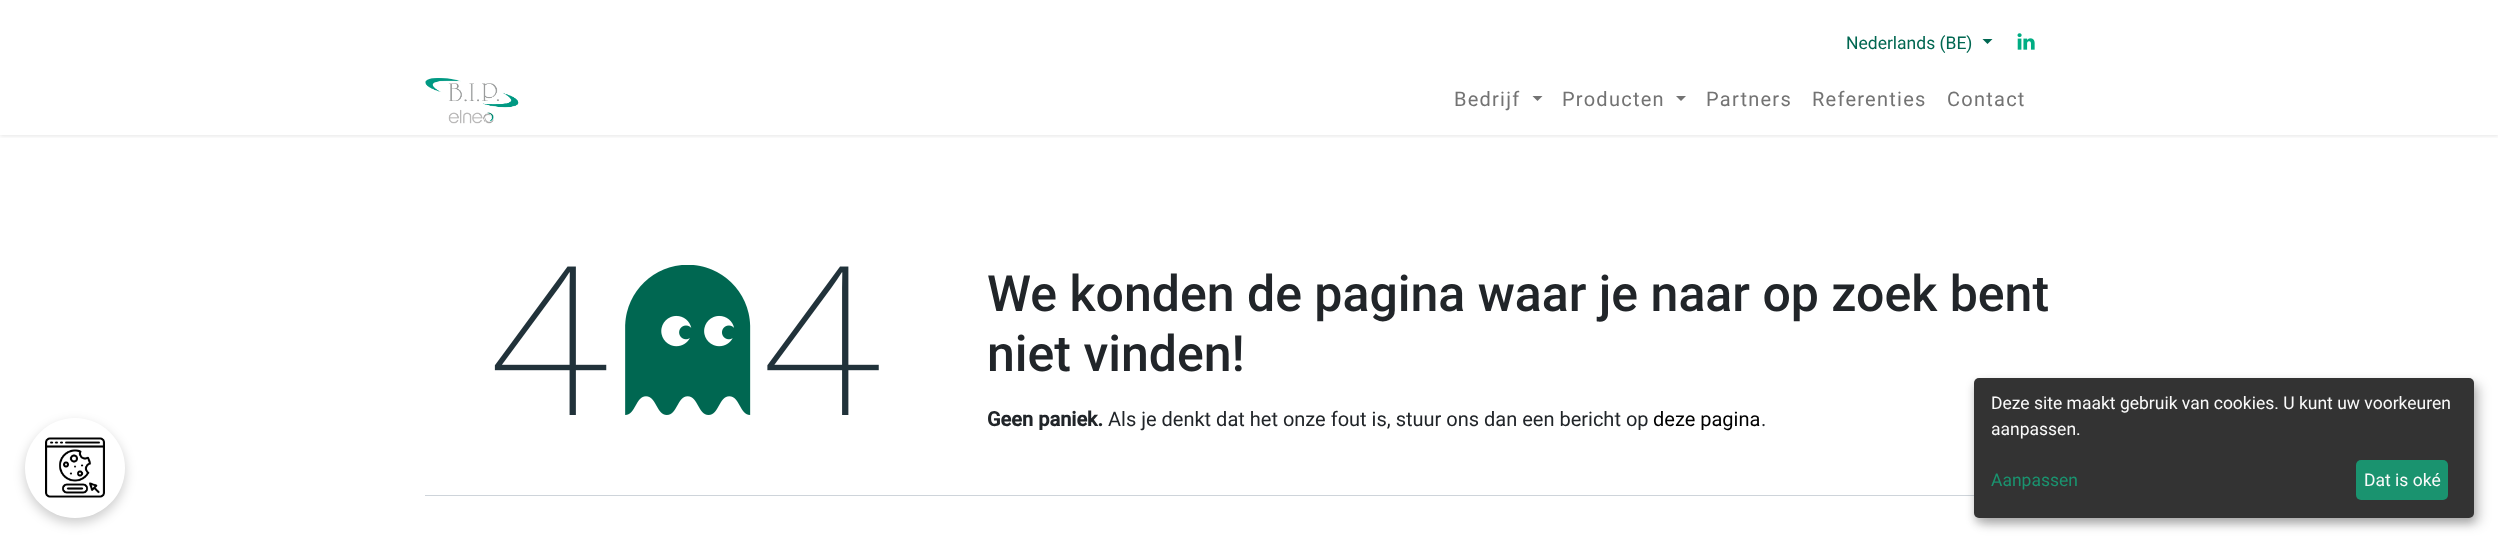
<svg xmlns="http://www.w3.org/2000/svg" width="2498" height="542">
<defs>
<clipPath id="clip1"><rect x="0" y="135" width="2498" height="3"/></clipPath>
</defs>
<rect width="100%" height="100%" fill="#fff"/>
<g clip-path="url(#clip1)">
<rect y="1" width="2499" height="135" fill="#0000001a" filter="blur(2px)"/>
</g>
<text x="1846" y="49" style="font-family:Roboto;font-size:17.5px;fill:#006751">Nederlands (BE)</text>
<path d="M1982.5 39h10l-5 5z" fill="#006751"/>
<image x="2017" y="33" width="18" height="17" href="media/1.png"/>
<image x="425" y="78" width="94" height="46" href="media/2.png"/>
<text x="1454" y="106" style="font-family:Roboto;font-size:20px;letter-spacing:1.25px;fill:#737373">Bedrijf</text>
<path d="M1532.5 96h10l-5 5z" fill="#737373"/>
<text x="1562" y="106" style="font-family:Roboto;font-size:20px;letter-spacing:1.25px;fill:#737373">Producten</text>
<path d="M1676 96h10l-5 5z" fill="#737373"/>
<text x="1706" y="106" style="font-family:Roboto;font-size:20px;letter-spacing:1.25px;fill:#737373">Partners</text>
<text x="1812" y="106" style="font-family:Roboto;font-size:20px;letter-spacing:1.25px;fill:#737373">Referenties</text>
<text x="1947" y="106" style="font-family:Roboto;font-size:20px;letter-spacing:1.25px;fill:#737373">Contact</text>
<image x="494" y="265" width="385" height="150" href="media/3.png"/>
<text x="987" y="311" style="font-family:Roboto;font-size:50px;font-weight:500;fill:#212529">We konden de pagina waar je naar op zoek bent</text>
<text x="987" y="371" style="font-family:Roboto;font-size:50px;font-weight:500;fill:#212529">niet vinden!</text>
<text x="987" y="426" style="font-family:Roboto;font-size:20px;font-weight:bold;fill:#212529">Geen paniek.</text>
<text x="1108" y="426" style="font-family:Roboto;font-size:20px;fill:#212529">Als je denkt dat het onze fout is, stuur ons dan een bericht op</text>
<text x="1653" y="426" style="font-family:Roboto;font-size:20px;fill:#000">deze pagina</text>
<text x="1761" y="426" style="font-family:Roboto;font-size:20px;fill:#212529">.</text>
<rect x="425" y="495" width="1549" height="1" fill="#ced4da"/>
<rect x="25" y="423" width="100" height="100" rx="50" fill="#00000033" filter="blur(6px)"/>
<circle cx="75" cy="468" r="50" fill="#fff"/>
<image x="45" y="437" width="60" height="61" href="media/4.png"/>
<rect x="1980" y="384" width="500" height="140" rx="5" fill="#00000030" filter="blur(6px)"/>
<rect x="1974" y="383" width="500" height="140" rx="5" fill="#00000033" filter="blur(4px)"/>
<rect x="1974" y="378" width="500" height="140" rx="5" fill="#333"/>
<text x="1991" y="409" style="font-family:Roboto;font-size:17.5px;fill:#fafafa">Deze site maakt gebruik van cookies. U kunt uw voorkeuren</text>
<text x="1991" y="435" style="font-family:Roboto;font-size:17.5px;fill:#fafafa">aanpassen.</text>
<text x="1991" y="486" style="font-family:Roboto;font-size:17.5px;fill:#1a936f">Aanpassen</text>
<rect x="2356" y="460" width="92" height="40" rx="5" fill="#1a936f"/>
<text x="2364" y="486" style="font-family:Roboto;font-size:17.5px;fill:#fafafa">Dat is oké</text>
</svg>
